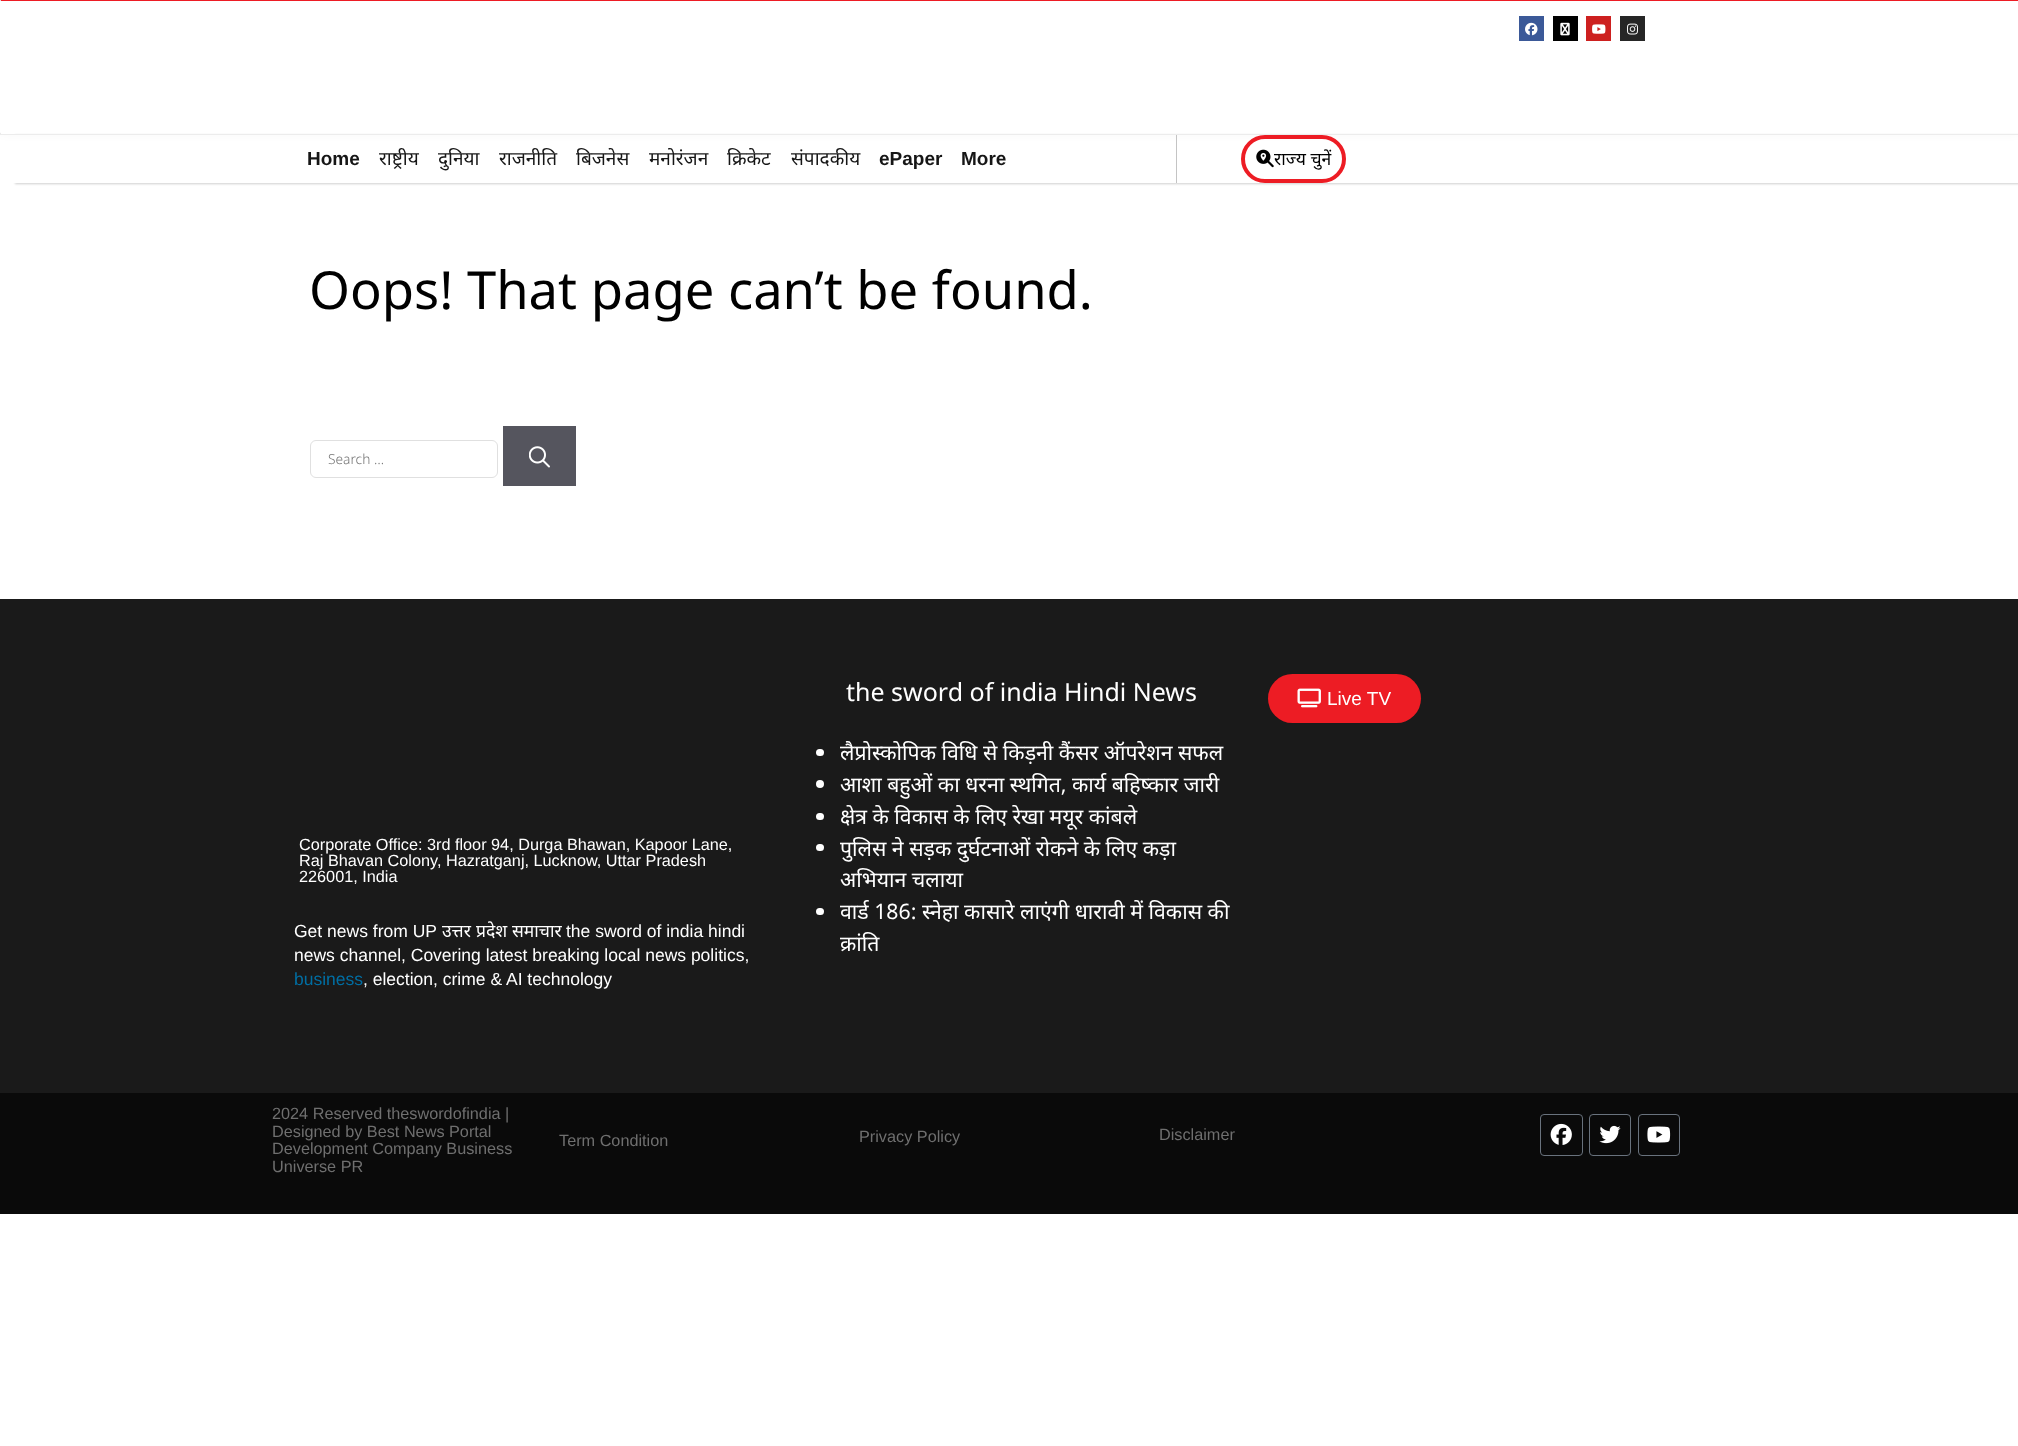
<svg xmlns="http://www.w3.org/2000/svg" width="2018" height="1446">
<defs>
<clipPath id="clip1"><path d="M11 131h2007v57h-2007zm-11 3h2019v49h-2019z" clip-rule="evenodd"/></clipPath>
</defs>
<rect width="100%" height="100%" fill="#fff"/>
<rect width="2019" height="134" rx="1" fill="#00000080" filter="blur(6px)"/>
<path d="M1 1h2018v131c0 1-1 2-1 2h-2017c0 0-1-1-1-2v-131z" fill="#fff"/>
<rect x="1" width="2017" height="1" fill="#ed1c24"/>
<rect x="1519" y="16" width="25" height="25" fill="#3b5998"/>
<image x="1525" y="22" width="13" height="14" href="media/1.png"/>
<rect x="1553" y="16" width="25" height="25" fill="#000"/>
<image x="1560" y="22" width="10" height="14" href="media/2.png"/>
<rect x="1586" y="16" width="25" height="25" fill="#cd201f"/>
<image x="1592" y="24" width="14" height="10" href="media/3.png"/>
<rect x="1620" y="16" width="25" height="25" fill="#262626"/>
<image x="1627" y="23" width="11" height="12" href="media/4.png"/>
<g clip-path="url(#clip1)">
<rect x="15" y="135" width="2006" height="49" fill="#00000030" filter="blur(1px)"/>
</g>
<rect y="135" width="2018" height="48" fill="#ffffffed"/>
<rect y="134" width="2018" height="1" fill="#ececec"/>
<rect x="1176" y="135" width="1" height="48" fill="#c4c4c4"/>
<text x="307" y="165" style="font-family:Liberation Sans;font-size:19px;font-weight:bold;fill:#161616">Home</text>
<text x="379" y="165" style="font-family:Noto Sans;font-size:19px;fill:#161616">राष्ट्रीय</text>
<text x="438" y="165" style="font-family:Noto Sans;font-size:19px;fill:#161616">दुनिया</text>
<text x="499" y="165" style="font-family:Noto Sans;font-size:19px;fill:#161616">राजनीति</text>
<text x="576" y="165" style="font-family:Noto Sans;font-size:19px;fill:#161616">बिजनेस</text>
<text x="649" y="165" style="font-family:Noto Sans;font-size:19px;fill:#161616">मनोरंजन</text>
<text x="727" y="165" style="font-family:Noto Sans;font-size:19px;fill:#161616">क्रिकेट</text>
<text x="791" y="165" style="font-family:Noto Sans;font-size:19px;fill:#161616">संपादकीय</text>
<text x="879" y="165" style="font-family:Liberation Sans;font-size:19px;font-weight:bold;fill:#161616">ePaper</text>
<text x="961" y="165" style="font-family:Liberation Sans;font-size:19px;font-weight:bold;fill:#161616">More</text>
<rect x="1243" y="137" width="101" height="44" rx="22" fill="none" stroke="#ed1c24" stroke-width="4"/>
<image x="1256" y="149" width="18" height="19" href="media/5.png"/>
<text x="1274" y="165" style="font-family:Noto Sans;font-size:17.5px;fill:#000">राज्य चुनें</text>
<text x="309" y="309" style="font-family:Noto Sans;font-size:52.5px;fill:#000">Oops! That page can’t be found.</text>
<rect x="310.5" y="440.5" width="187" height="37" rx="5.5" fill="none" stroke="#e0e0e0"/>
<text x="328" y="464" style="font-family:Noto Sans;font-size:13.75px;font-weight:300;fill:#757575">Search …</text>
<rect x="503" y="426" width="73" height="60" fill="#55555e"/>
<image x="529" y="446" width="21" height="22" href="media/6.png"/>
<rect y="599" width="2018" height="494" fill="#1a1a1a"/>
<text x="846" y="701" style="font-family:Noto Sans;font-size:25px;fill:#fff">the sword of india Hindi News</text>
<rect x="816" y="749" width="8" height="7" rx="3.5" fill="#fff"/>
<text x="840" y="760" style="font-family:Noto Sans;font-size:21.25px;fill:#fff">लैप्रोस्कोपिक विधि से किड़नी कैंसर ऑपरेशन सफल</text>
<circle cx="820" cy="784" r="4" fill="#fff"/>
<text x="840" y="792" style="font-family:Noto Sans;font-size:21.25px;fill:#fff">आशा बहुओं का धरना स्थगित, कार्य बहिष्कार जारी</text>
<rect x="816" y="813" width="8" height="7" rx="3.5" fill="#fff"/>
<text x="840" y="824" style="font-family:Noto Sans;font-size:21.25px;fill:#fff">क्षेत्र के विकास के लिए रेखा मयूर कांबले</text>
<rect x="816" y="844" width="8" height="7" rx="3.5" fill="#fff"/>
<text x="840" y="856" style="font-family:Noto Sans;font-size:21.25px;fill:#fff">पुलिस ने सड़क दुर्घटनाओं रोकने के लिए कड़ा</text>
<text x="840" y="887" style="font-family:Noto Sans;font-size:21.25px;fill:#fff">अभियान चलाया</text>
<rect x="816" y="908" width="8" height="7" rx="3.5" fill="#fff"/>
<text x="840" y="919" style="font-family:Noto Sans;font-size:21.25px;fill:#fff">वार्ड 186: स्नेहा कासारे लाएंगी धारावी में विकास की</text>
<text x="840" y="951" style="font-family:Noto Sans;font-size:21.25px;fill:#fff">क्रांति</text>
<rect x="1268" y="674" width="153" height="49" rx="24.5" fill="#ed1c24"/>
<image x="1297" y="688" width="24" height="20" href="media/7.png"/>
<text x="1327" y="705" style="font-family:Liberation Sans;font-size:19px;fill:#fff">Live TV</text>
<text x="299" y="850" style="font-family:Liberation Sans;font-size:16.25px;fill:#fff">Corporate Office: 3rd floor 94, Durga Bhawan, Kapoor Lane,</text>
<text x="299" y="866" style="font-family:Liberation Sans;font-size:16.25px;fill:#fff">Raj Bhavan Colony, Hazratganj, Lucknow, Uttar Pradesh</text>
<text x="299" y="882" style="font-family:Liberation Sans;font-size:16.25px;fill:#fff">226001, India</text>
<text x="294" y="937" style="font-family:Liberation Sans;font-size:17.5px;fill:#fff">Get news from UP</text>
<text x="442" y="937" style="font-family:Noto Sans;font-size:17.5px;fill:#fff">उत्तर</text>
<text x="476" y="937" style="font-family:Noto Sans;font-size:17.5px;fill:#fff">प्रदेश</text>
<text x="512" y="937" style="font-family:Noto Sans;font-size:17.5px;fill:#fff">समाचार</text>
<text x="566" y="937" style="font-family:Liberation Sans;font-size:17.5px;fill:#fff">the sword of india hindi</text>
<text x="294" y="961" style="font-family:Liberation Sans;font-size:17.5px;fill:#fff">news channel, Covering latest breaking local news politics,</text>
<text x="294" y="985" style="font-family:Liberation Sans;font-size:17.5px;fill:#006ea3">business</text>
<text x="363" y="985" style="font-family:Liberation Sans;font-size:17.5px;fill:#fff">, election, crime &amp; AI technology</text>
<rect y="1093" width="2018" height="121" fill="#0a0a0a"/>
<text x="272" y="1119" style="font-family:Liberation Sans;font-size:16.25px;fill:#6f6f6f">2024 Reserved theswordofindia |</text>
<text x="272" y="1137" style="font-family:Liberation Sans;font-size:16.25px;fill:#6f6f6f">Designed by Best News Portal</text>
<text x="272" y="1154" style="font-family:Liberation Sans;font-size:16.25px;fill:#6f6f6f">Development Company Business</text>
<text x="272" y="1172" style="font-family:Liberation Sans;font-size:16.25px;fill:#6f6f6f">Universe PR</text>
<text x="559" y="1146" style="font-family:Liberation Sans;font-size:16.25px;fill:#6f6f6f">Term Condition</text>
<text x="859" y="1142" style="font-family:Liberation Sans;font-size:16.25px;fill:#6f6f6f">Privacy Policy</text>
<text x="1159" y="1140" style="font-family:Liberation Sans;font-size:16.25px;fill:#6f6f6f">Disclaimer</text>
<rect x="1540.5" y="1114.5" width="42" height="41" rx="3.5" fill="none" stroke="#69727d"/>
<image x="1550" y="1123" width="22" height="22" href="media/8.png"/>
<rect x="1589.5" y="1114.5" width="41" height="41" rx="3.5" fill="none" stroke="#69727d"/>
<image x="1599" y="1125" width="22" height="19" href="media/9.png"/>
<rect x="1638.5" y="1114.5" width="41" height="41" rx="3.5" fill="none" stroke="#69727d"/>
<image x="1647" y="1126" width="24" height="17" href="media/10.png"/>
</svg>
